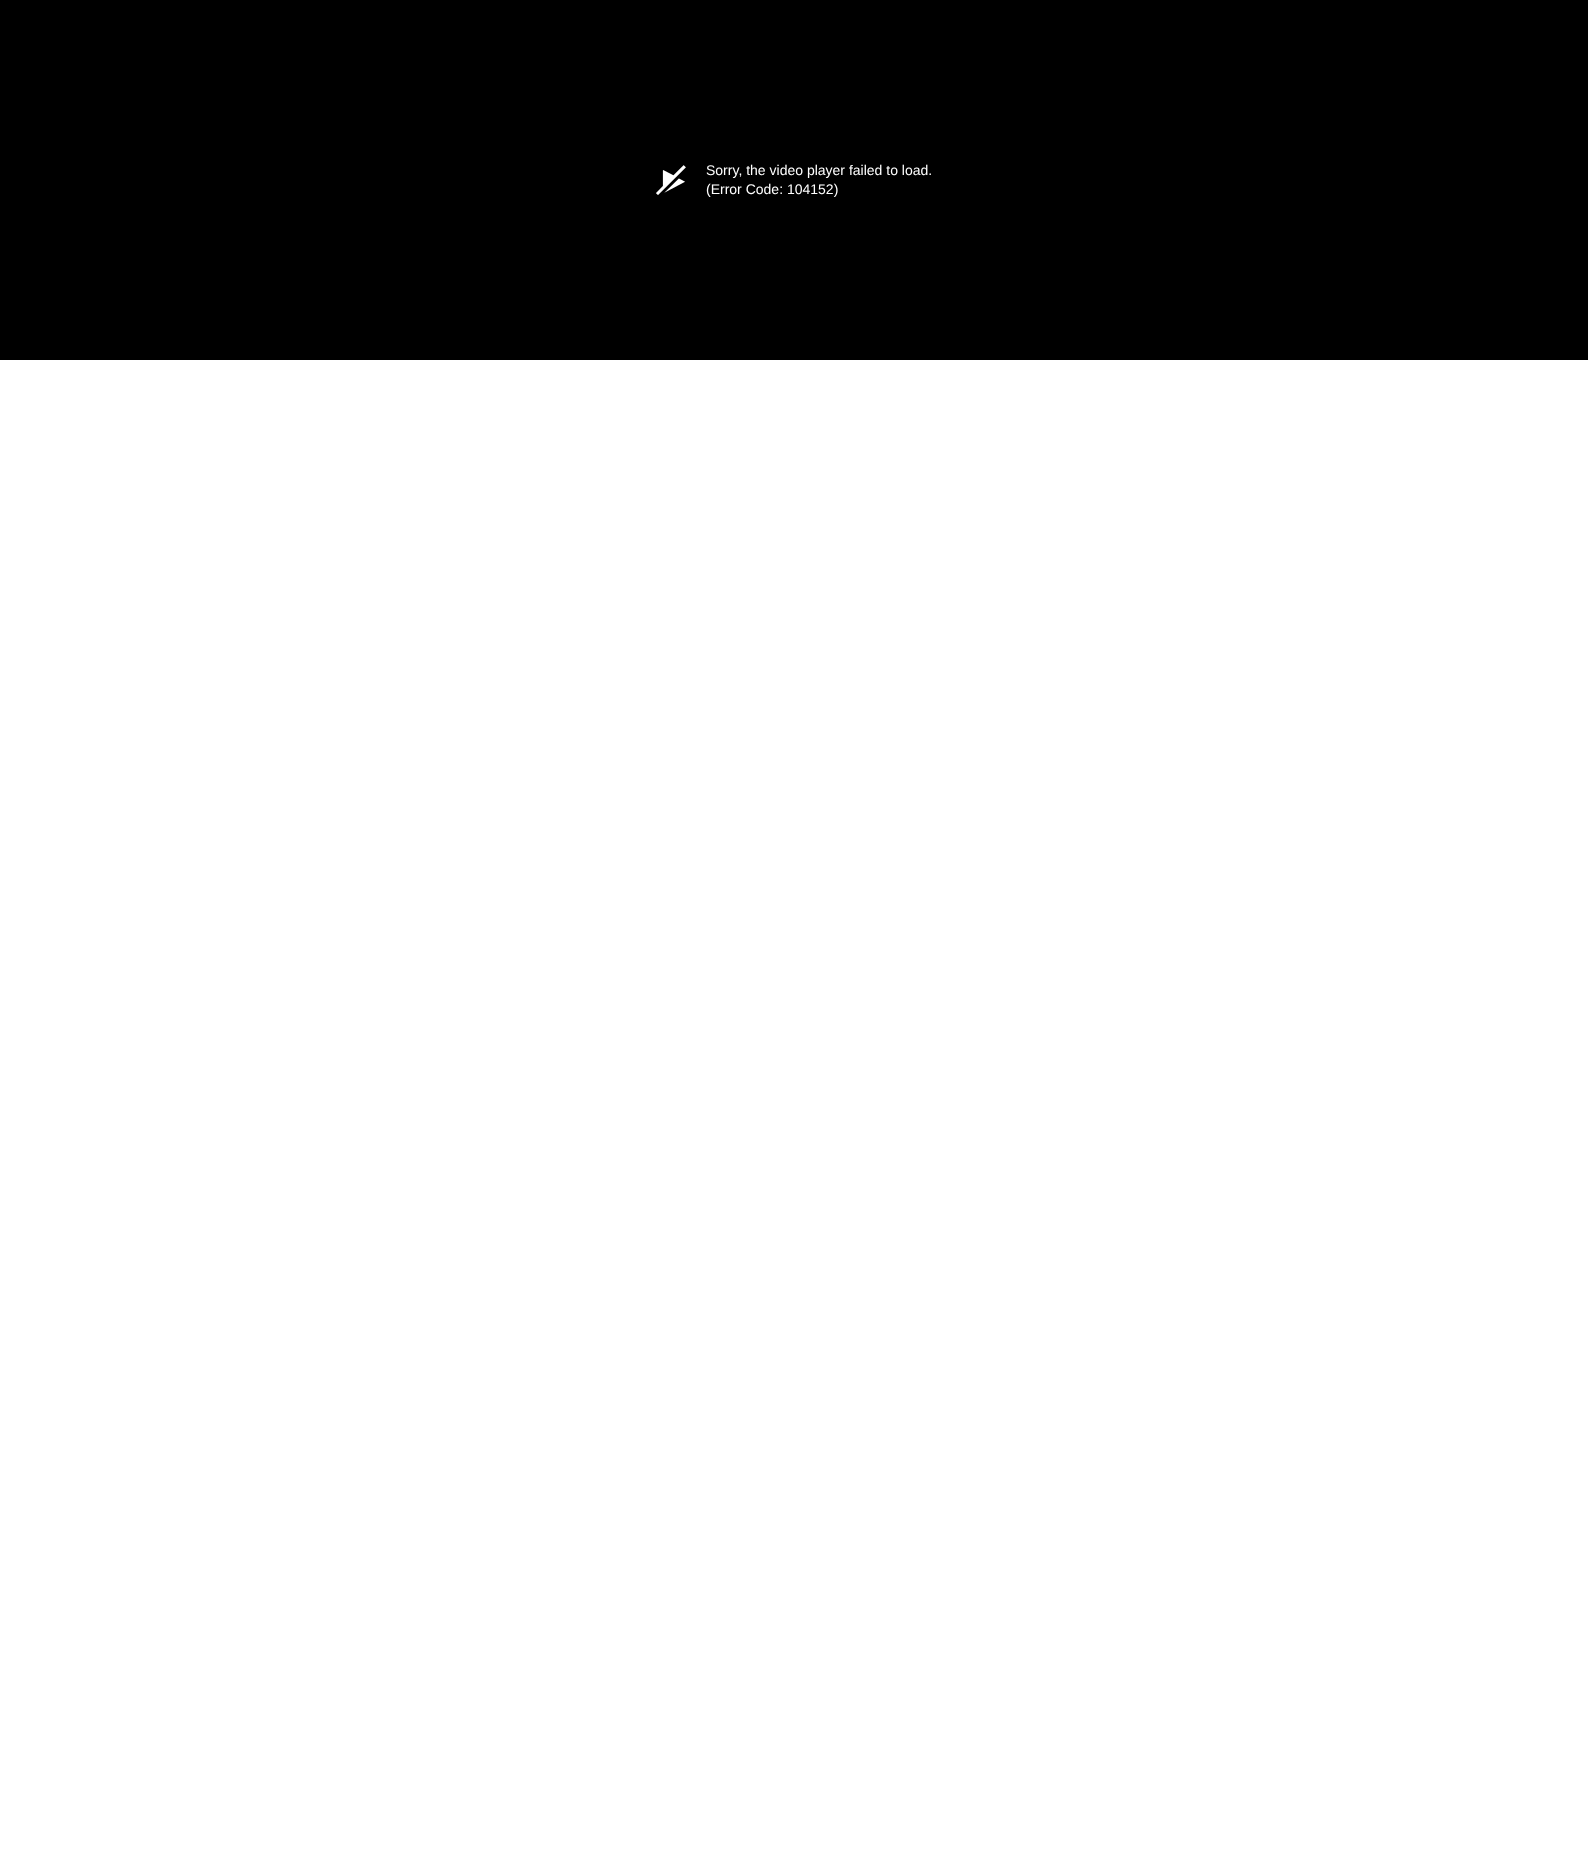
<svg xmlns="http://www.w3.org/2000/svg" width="1588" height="1876">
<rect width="100%" height="100%" fill="#fff"/>
<rect width="1588" height="360" fill="#000"/>
<image x="656" y="165" width="30" height="30" href="media/1.png"/>
<text x="706" y="175" style="font-family:Liberation Sans;font-size:14px;fill:#fff">Sorry, the video player failed to load.</text>
<text x="706" y="194" style="font-family:Liberation Sans;font-size:14px;fill:#fff">(Error Code: 104152)</text>
</svg>
